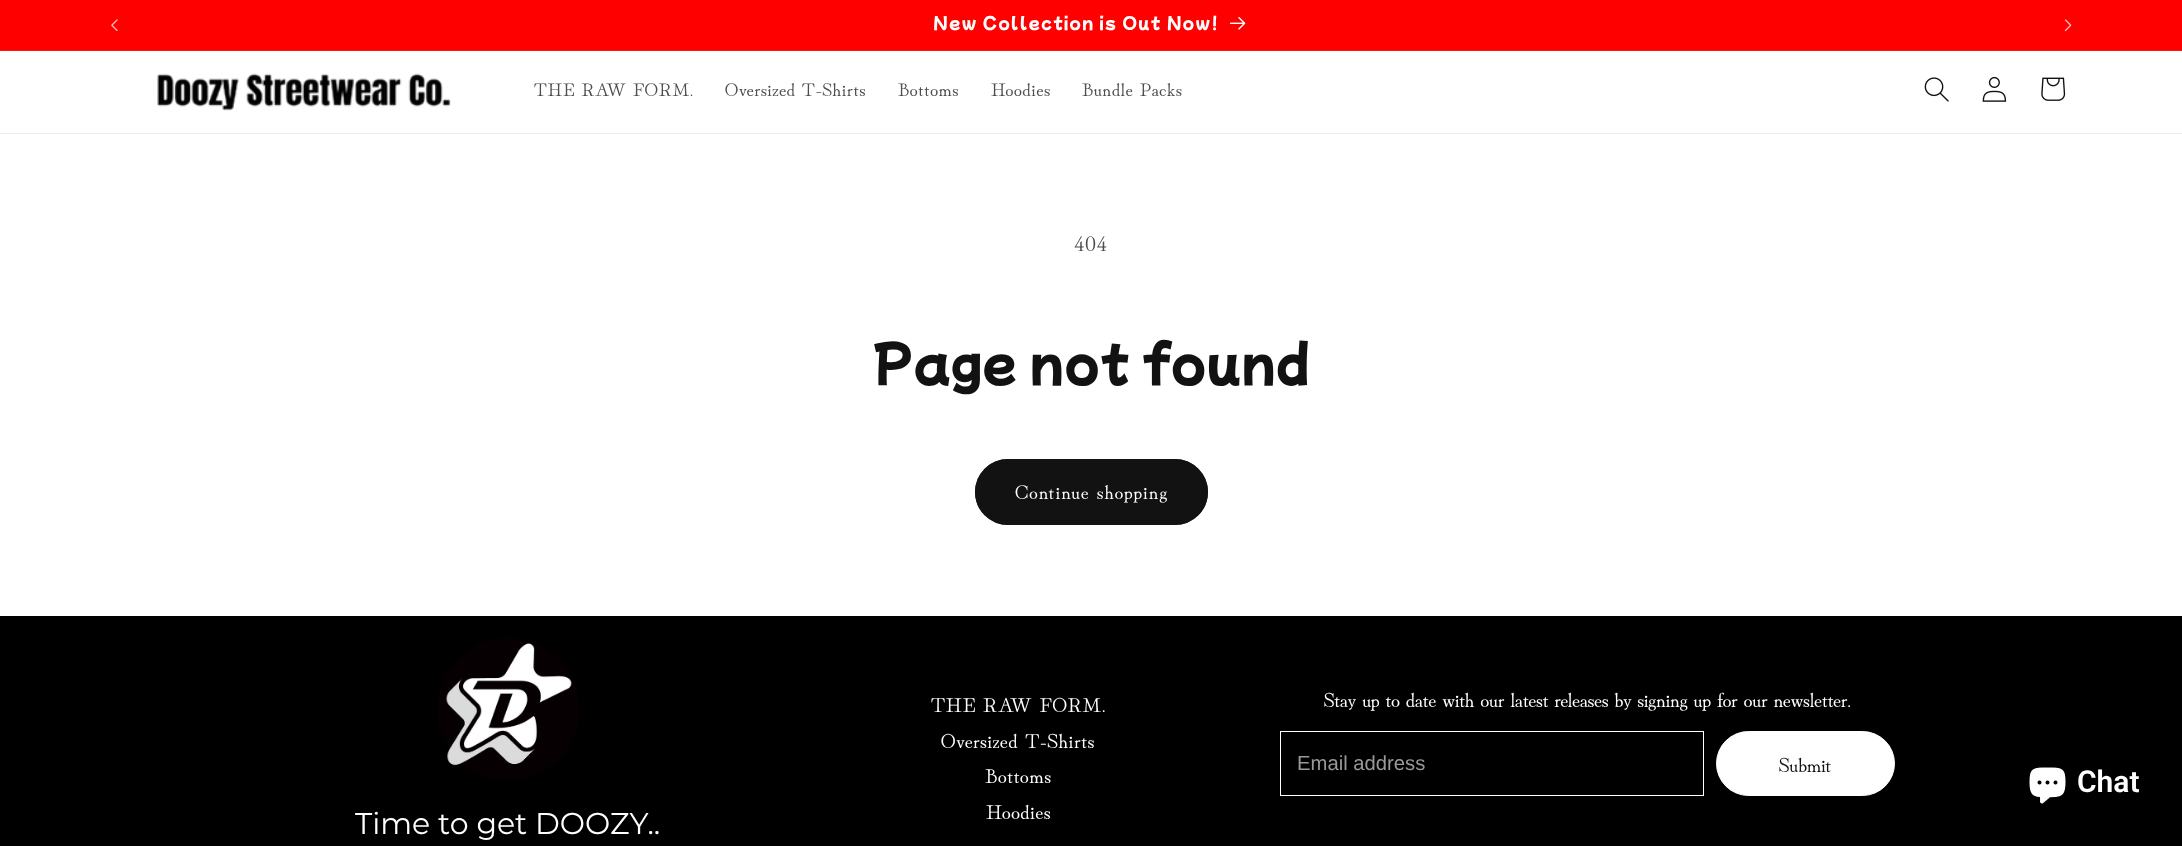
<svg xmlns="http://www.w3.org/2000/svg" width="2182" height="846">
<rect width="100%" height="100%" fill="#fff"/>
<rect width="2182" height="50" fill="#f00"/>
<rect y="50" width="2182" height="1" fill="#ff1414"/>
<image x="111" y="19" width="7" height="12" href="media/1.png"/>
<text x="933" y="29" style="font-family:Mochiy Pop P One;font-size:16.25px;letter-spacing:1.3px;fill:#fff">New Collection is Out Now!</text>
<image x="1230" y="17" width="16" height="13" href="media/2.png"/>
<image x="2064" y="19" width="8" height="13" href="media/3.png"/>
<rect y="133" width="2182" height="1" fill="#ececec"/>
<image x="157" y="73" width="294" height="38" href="media/4.png"/>
<text x="534" y="96" style="font-family:Hina Mincho;font-size:18.4px;letter-spacing:0.75px;fill:#4d4d4d">THE RAW FORM.</text>
<text x="725" y="96" style="font-family:Hina Mincho;font-size:18.4px;letter-spacing:0.75px;fill:#4d4d4d">Oversized T-Shirts</text>
<text x="898" y="96" style="font-family:Hina Mincho;font-size:18.4px;letter-spacing:0.75px;fill:#4d4d4d">Bottoms</text>
<text x="991" y="96" style="font-family:Hina Mincho;font-size:18.4px;letter-spacing:0.75px;fill:#4d4d4d">Hoodies</text>
<text x="1082" y="96" style="font-family:Hina Mincho;font-size:18.4px;letter-spacing:0.75px;fill:#4d4d4d">Bundle Packs</text>
<image x="1924" y="77" width="25" height="25" href="media/5.png"/>
<image x="1982" y="76" width="25" height="26" href="media/6.png"/>
<image x="2041" y="77" width="25" height="24" href="media/7.png"/>
<text x="1074" y="251" style="font-family:Hina Mincho;font-size:21px;letter-spacing:0.75px;fill:#4d4d4d">404</text>
<text x="872" y="382" style="font-family:Mochiy Pop P One;font-size:50px;letter-spacing:0.75px;fill:#121212">Page not found</text>
<rect x="975" y="459" width="233" height="66" rx="33" fill="#121212"/>
<rect x="977" y="461" width="229" height="62" rx="31" fill="none" stroke="#121212" stroke-width="4"/>
<text x="1015" y="499" style="font-family:Hina Mincho;font-size:19.75px;letter-spacing:1.3px;fill:#fff">Continue shopping</text>
<rect y="616" width="2182" height="230" fill="#000"/>
<text x="931" y="712" style="font-family:Hina Mincho;font-size:20.25px;letter-spacing:0.75px;fill:#fff">THE RAW FORM.</text>
<text x="941" y="748" style="font-family:Hina Mincho;font-size:20.25px;letter-spacing:0.75px;fill:#fff">Oversized T-Shirts</text>
<text x="985" y="783" style="font-family:Hina Mincho;font-size:20.25px;letter-spacing:0.75px;fill:#fff">Bottoms</text>
<text x="986" y="819" style="font-family:Hina Mincho;font-size:20.25px;letter-spacing:0.75px;fill:#fff">Hoodies</text>
<text x="1324" y="707" style="font-family:Hina Mincho;font-size:20.25px;fill:#fff">Stay up to date with our latest releases by signing up for our newsletter.</text>
<rect x="1280.5" y="731.5" width="423" height="64" fill="none" stroke="#fff"/>
<text x="1297" y="770" style="font-family:Liberation Sans;font-size:20.25px;fill:#999">Email address</text>
<rect x="1716.5" y="731.5" width="178" height="64" rx="32" fill="#fff" stroke="#fff"/>
<text x="1779" y="772" style="font-family:Hina Mincho;font-size:20.25px;fill:#121212">Submit</text>
<image x="437" y="637" width="142" height="144" href="media/8.png"/>
<text x="355" y="834" style="font-family:Montserrat;font-size:30px;fill:#fff">Time to get DOOZY..</text>
<image x="2029" y="767" width="37" height="37" href="media/9.png"/>
<text x="2077" y="792" style="font-family:Roboto;font-size:30px;font-weight:600;fill:#fff">Chat</text>
</svg>
